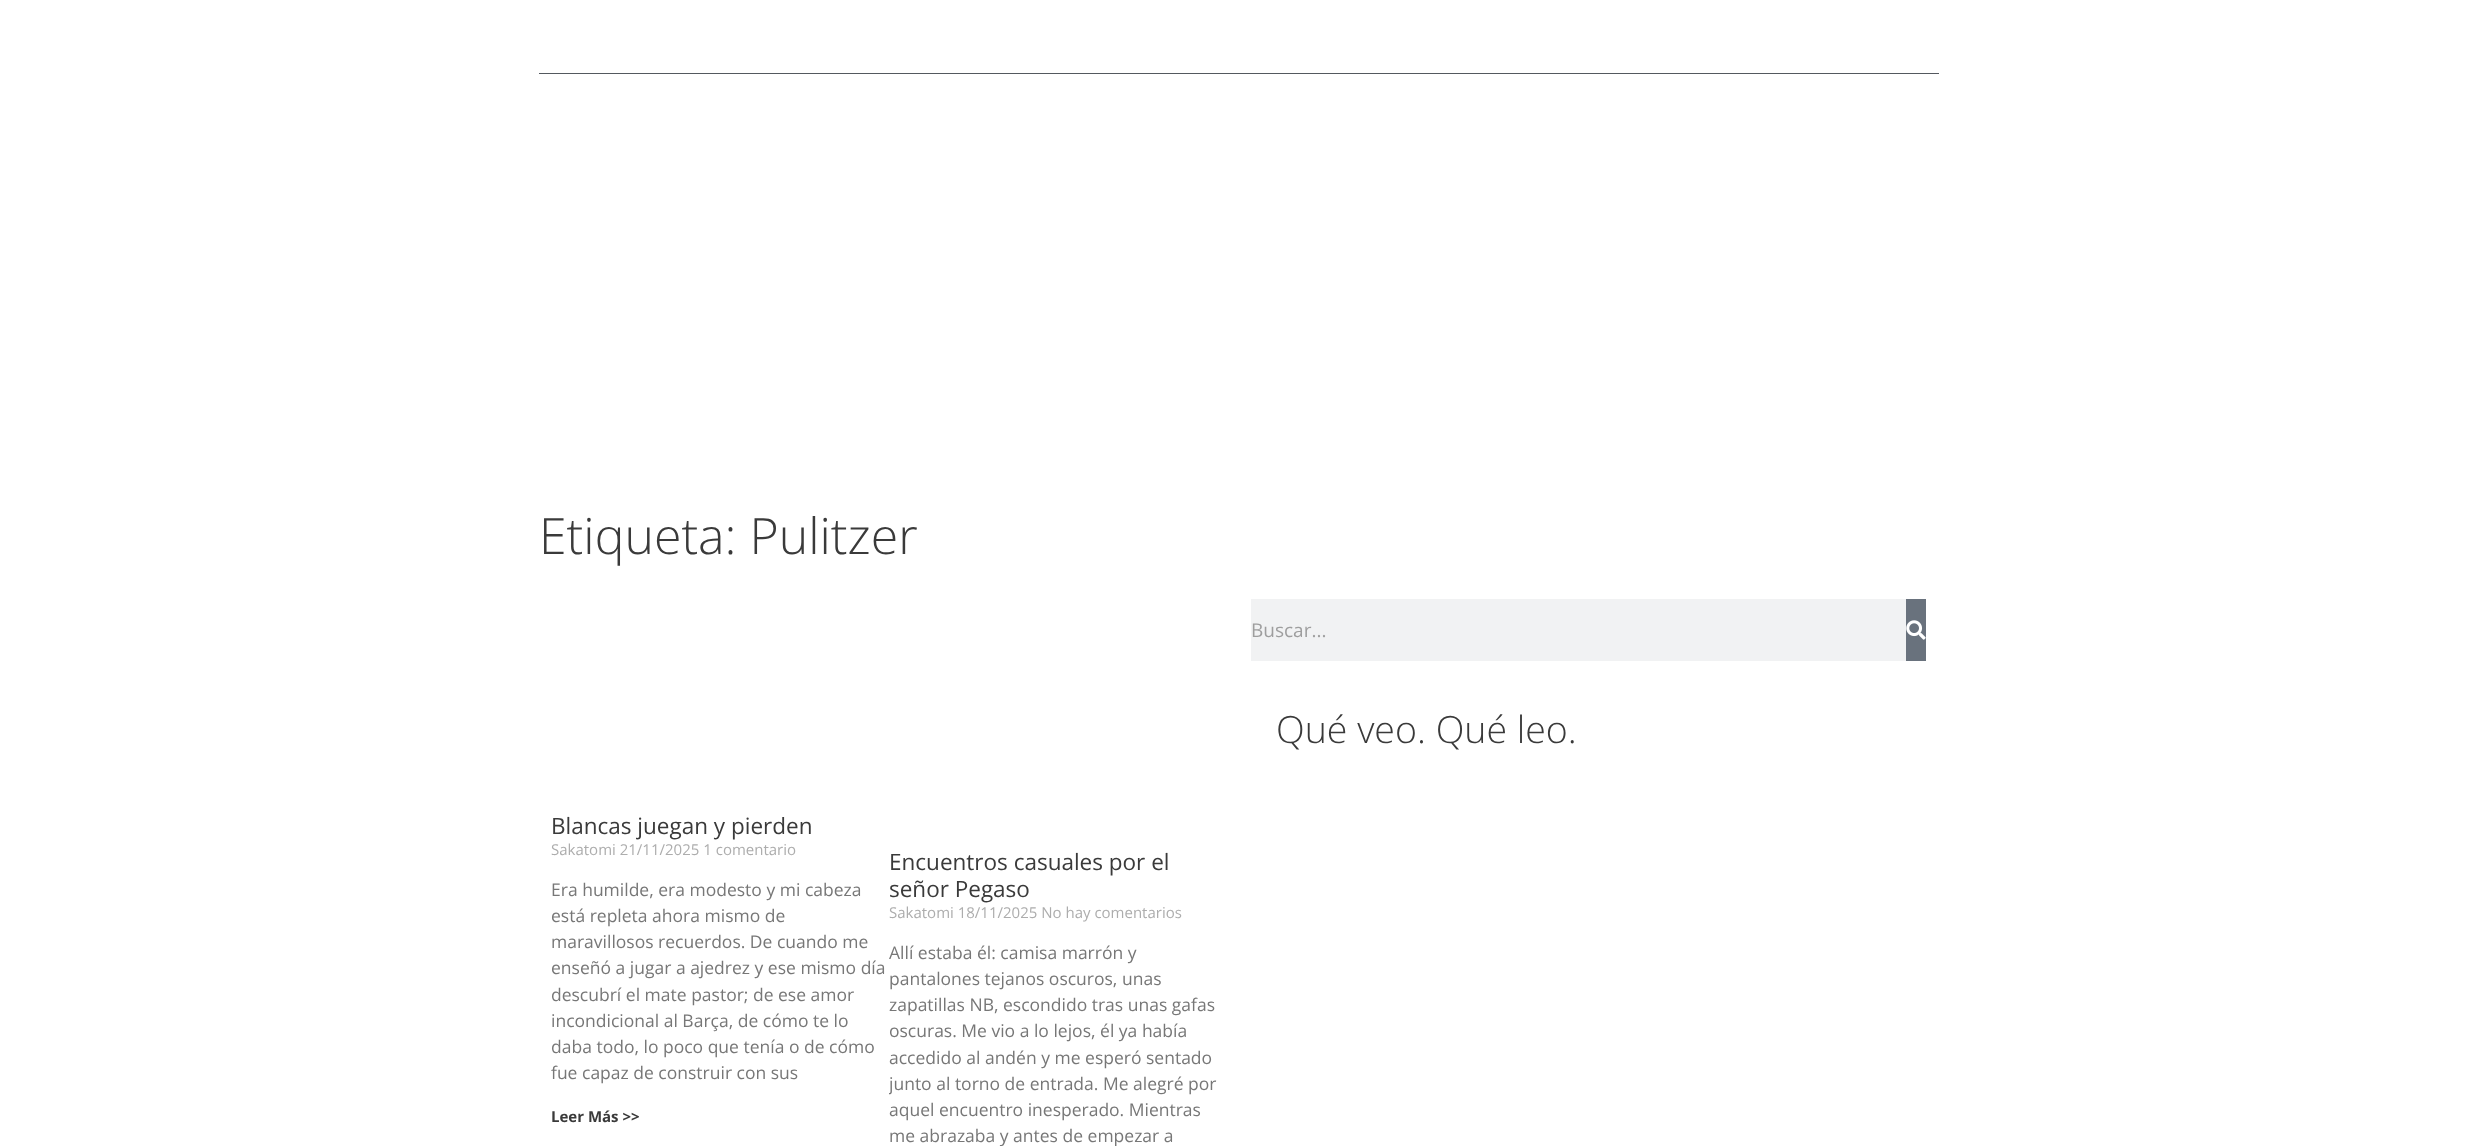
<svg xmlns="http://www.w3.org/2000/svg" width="2477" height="1146">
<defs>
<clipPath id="clip1"><rect x="889" y="599" width="337" height="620"/></clipPath>
</defs>
<rect width="100%" height="100%" fill="#fff"/>
<rect x="539" y="73" width="1400" height="1" fill="#54595f"/>
<text x="539" y="554" style="font-family:Open Sans;font-size:50px;font-weight:300;fill:#3a3a3a">Etiqueta: Pulitzer</text>
<rect x="1251" y="599" width="655" height="62" fill="#f1f2f3"/>
<text x="1251" y="637" style="font-family:Open Sans;font-size:19px;fill:#9e9e9e">Buscar...</text>
<rect x="1906" y="599" width="20" height="62" fill="#69727d"/>
<image x="1906" y="620" width="20" height="20" href="media/1.png"/>
<text x="1276" y="743" style="font-family:Open Sans;font-size:37.5px;font-weight:300;fill:#3a3a3a">Qué veo. Qué leo.</text>
<text x="551" y="834" style="font-family:Open Sans;font-size:22.5px;fill:#3a3a3a">Blancas juegan y pierden</text>
<text x="551" y="855" style="font-family:Open Sans;font-size:15px;fill:#adadad">Sakatomi 21/11/2025 1 comentario</text>
<text x="551" y="896" style="font-family:Open Sans;font-size:17.5px;fill:#777">Era humilde, era modesto y mi cabeza</text>
<text x="551" y="922" style="font-family:Open Sans;font-size:17.5px;fill:#777">está repleta ahora mismo de</text>
<text x="551" y="948" style="font-family:Open Sans;font-size:17.5px;fill:#777">maravillosos recuerdos. De cuando me</text>
<text x="551" y="974" style="font-family:Open Sans;font-size:17.5px;fill:#777">enseñó a jugar a ajedrez y ese mismo día</text>
<text x="551" y="1001" style="font-family:Open Sans;font-size:17.5px;fill:#777">descubrí el mate pastor; de ese amor</text>
<text x="551" y="1027" style="font-family:Open Sans;font-size:17.5px;fill:#777">incondicional al Barça, de cómo te lo</text>
<text x="551" y="1053" style="font-family:Open Sans;font-size:17.5px;fill:#777">daba todo, lo poco que tenía o de cómo</text>
<text x="551" y="1079" style="font-family:Open Sans;font-size:17.5px;fill:#777">fue capaz de construir con sus</text>
<text x="551" y="1122" style="font-family:Open Sans;font-size:15px;font-weight:bold;fill:#3a3a3a">Leer Más &gt;&gt;</text>
<text x="889" y="870" style="font-family:Open Sans;font-size:22.5px;fill:#3a3a3a">Encuentros casuales por el</text>
<text x="889" y="897" style="font-family:Open Sans;font-size:22.5px;fill:#3a3a3a">señor Pegaso</text>
<text x="889" y="918" style="font-family:Open Sans;font-size:15px;fill:#adadad">Sakatomi 18/11/2025 No hay comentarios</text>
<text x="889" y="959" style="font-family:Open Sans;font-size:17.5px;fill:#777">Allí estaba él: camisa marrón y</text>
<text x="889" y="985" style="font-family:Open Sans;font-size:17.5px;fill:#777">pantalones tejanos oscuros, unas</text>
<text x="889" y="1011" style="font-family:Open Sans;font-size:17.5px;fill:#777">zapatillas NB, escondido tras unas gafas</text>
<text x="889" y="1037" style="font-family:Open Sans;font-size:17.5px;fill:#777">oscuras. Me vio a lo lejos, él ya había</text>
<text x="889" y="1064" style="font-family:Open Sans;font-size:17.5px;fill:#777">accedido al andén y me esperó sentado</text>
<g clip-path="url(#clip1)">
<text x="889" y="1090" style="font-family:Open Sans;font-size:17.5px;fill:#777">junto al torno de entrada. Me alegré por</text>
</g>
<text x="889" y="1116" style="font-family:Open Sans;font-size:17.5px;fill:#777">aquel encuentro inesperado. Mientras</text>
<text x="889" y="1142" style="font-family:Open Sans;font-size:17.5px;fill:#777">me abrazaba y antes de empezar a</text>
</svg>
